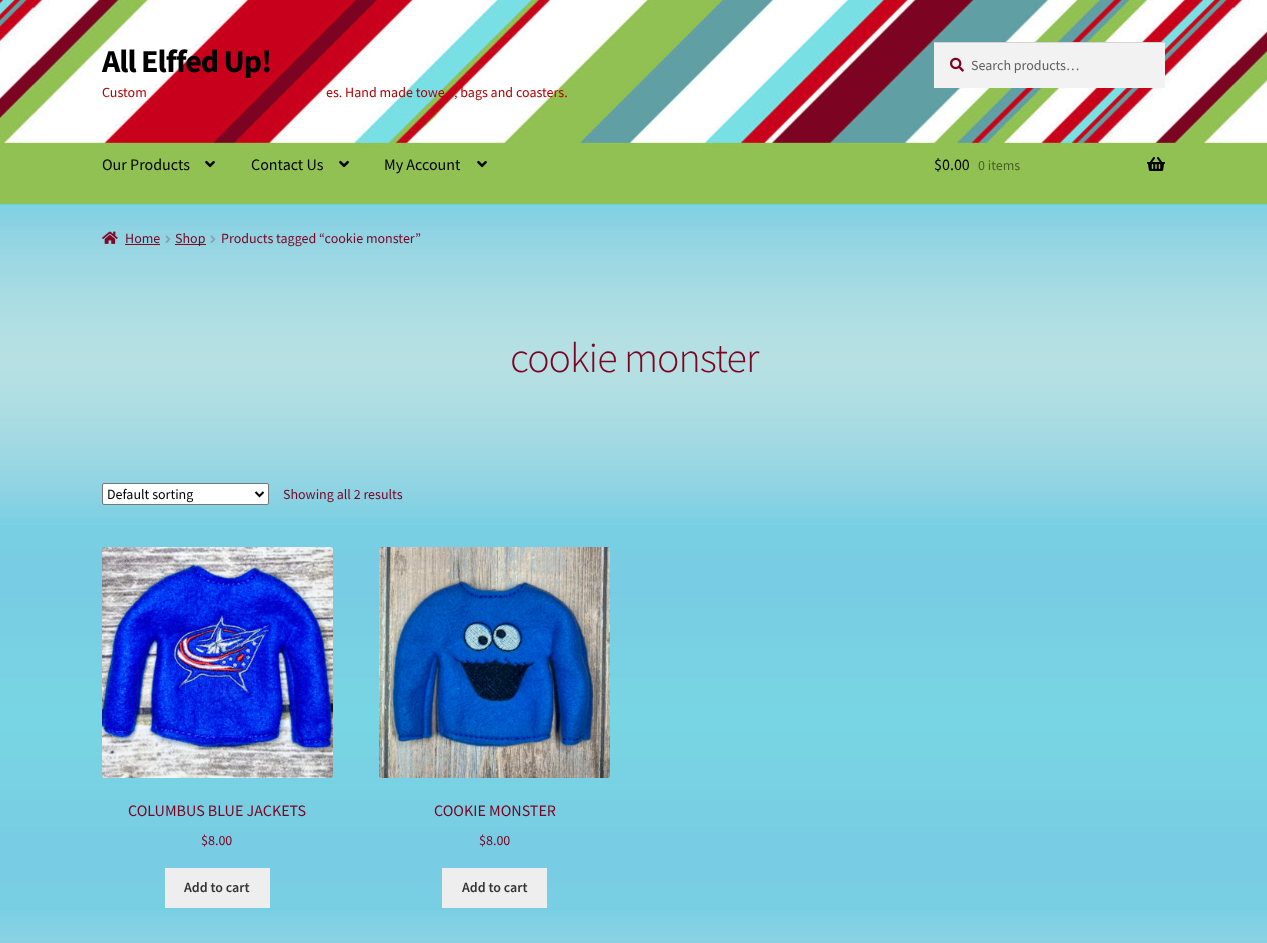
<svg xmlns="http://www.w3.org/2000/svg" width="1267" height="943">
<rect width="100%" height="100%" fill="#fff"/>
<image x="0" y="205" width="1267" height="738" href="media/1.png"/>
<image x="0" y="0" width="1267" height="204" href="media/2.png"/>
<rect y="204" width="1267" height="1" fill="#69d0d5"/>
<text x="102" y="72" style="font-family:Source Sans Pro;font-size:32px;font-weight:bold;letter-spacing:-1px;fill:#000">All Elffed Up!</text>
<text x="102" y="97" style="font-family:Source Sans Pro;font-size:14px;fill:#af0000">Custom</text>
<text x="326" y="97" style="font-family:Source Sans Pro;font-size:14px;fill:#af0000">es. Hand made towe</text>
<text x="454" y="97" style="font-family:Source Sans Pro;font-size:14px;fill:#af0000">, bags and coasters.</text>
<rect x="934" y="43" width="231" height="45" fill="#f2f2f2"/>
<image x="950" y="57" width="14" height="15" href="media/3.png"/>
<rect x="934" y="42" width="231" height="1" fill="#d4d4d4"/>
<text x="971" y="70" style="font-family:Source Sans Pro;font-size:14px;fill:#616161">Search products…</text>
<text x="102" y="170" style="font-family:Source Sans Pro;font-size:16px;fill:#000">Our Products</text>
<image x="205" y="160" width="10" height="8" href="media/4.png"/>
<text x="251" y="170" style="font-family:Source Sans Pro;font-size:16px;fill:#000">Contact Us</text>
<image x="339" y="160" width="10" height="8" href="media/4.png"/>
<text x="384" y="170" style="font-family:Source Sans Pro;font-size:16px;fill:#000">My Account</text>
<image x="477" y="160" width="10" height="8" href="media/4.png"/>
<text x="934" y="170" style="font-family:Source Sans Pro;font-size:16px;fill:#000">$0.00</text>
<text x="978" y="170" style="font-family:Source Sans Pro;font-size:14px;fill:#49612a">0 items</text>
<image x="1147" y="157" width="18" height="14" href="media/5.png"/>
<image x="102" y="231" width="16" height="13" href="media/6.png"/>
<text x="125" y="243" style="font-family:Source Sans Pro;font-size:14px;fill:#7c0322">Home</text>
<rect x="125" y="244" width="35" height="1" fill="#810827"/>
<image x="165" y="235" width="6" height="8" href="media/7.png"/>
<rect x="175" y="244" width="31" height="1" fill="#810827"/>
<text x="175" y="243" style="font-family:Source Sans Pro;font-size:14px;fill:#7c0322">Shop</text>
<image x="210" y="235" width="6" height="8" href="media/7.png"/>
<text x="221" y="243" style="font-family:Source Sans Pro;font-size:14px;fill:#7c0322">Products tagged “cookie monster”</text>
<text x="510" y="372" style="font-family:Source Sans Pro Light;font-size:42px;font-weight:300;letter-spacing:-1px;fill:#7c0322">cookie monster</text>
<rect x="102.5" y="483.5" width="166" height="21" rx="1.5" fill="#fff" stroke="#767676"/>
<path d="M255.5 492l4 4l4-4" fill="none" stroke="#000" stroke-width="2"/>
<text x="107" y="499" style="font-family:Source Sans Pro;font-size:14px;fill:#000">Default sorting</text>
<text x="283" y="499" style="font-family:Source Sans Pro;font-size:14px;fill:#7c0322">Showing all 2 results</text>
<image x="102" y="547" width="231" height="231" href="media/8.png"/>
<text x="128" y="816" style="font-family:Source Sans Pro;font-size:16px;fill:#7c0322">COLUMBUS BLUE JACKETS</text>
<text x="201" y="845" style="font-family:Source Sans Pro;font-size:14px;fill:#7c0322">$8.00</text>
<rect x="165" y="868" width="105" height="40" fill="#eee"/>
<text x="184" y="892" style="font-family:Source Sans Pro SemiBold;font-size:14px;font-weight:600;fill:#333">Add to cart</text>
<image x="379" y="547" width="231" height="231" href="media/9.png"/>
<text x="434" y="816" style="font-family:Source Sans Pro;font-size:16px;fill:#7c0322">COOKIE MONSTER</text>
<text x="479" y="845" style="font-family:Source Sans Pro;font-size:14px;fill:#7c0322">$8.00</text>
<rect x="442" y="868" width="105" height="40" fill="#eee"/>
<text x="462" y="892" style="font-family:Source Sans Pro SemiBold;font-size:14px;font-weight:600;fill:#333">Add to cart</text>
</svg>
